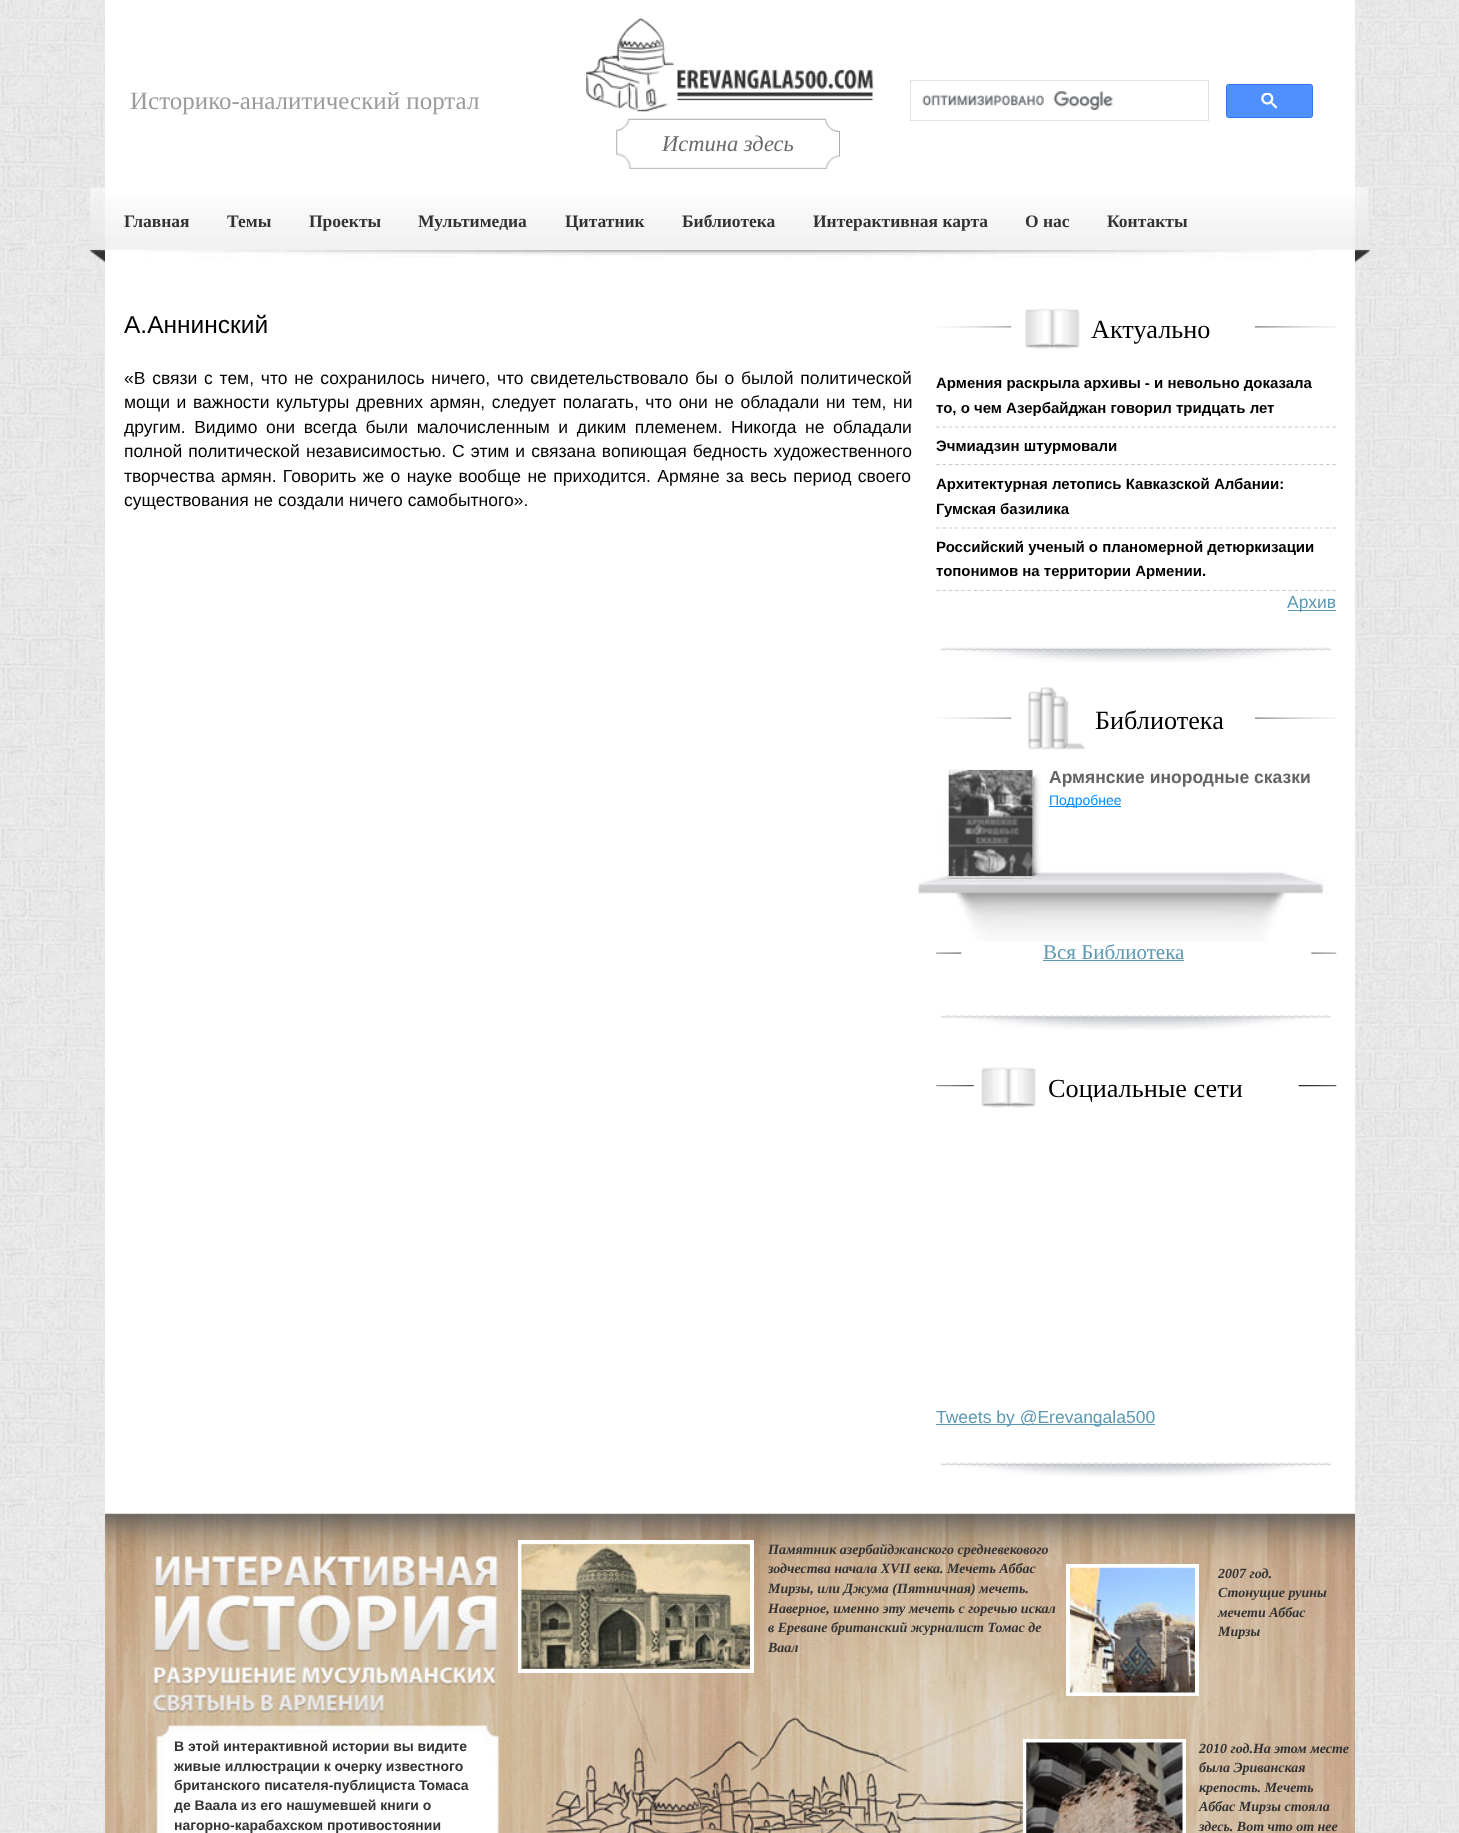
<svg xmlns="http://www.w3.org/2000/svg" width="1459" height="1833">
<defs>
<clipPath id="clip1"><rect x="174" y="1738" width="306" height="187"/></clipPath>
</defs>
<rect width="100%" height="100%" fill="#fff"/>
<image x="0" y="0" width="1459" height="1833" href="media/1.png"/>
<rect x="105" width="1250" height="1514" fill="#fff"/>
<text x="130" y="109" style="font-family:Liberation Serif;font-size:25px;fill:#9b9b9b">Историко-аналитический портал</text>
<rect x="910.5" y="80.5" width="298" height="40" fill="none" stroke="#dfe1e5"/>
<image x="922" y="91" width="191" height="19" href="media/2.png"/>
<rect x="1226.5" y="84.5" width="86" height="33" rx="2" fill="#4d90fe" stroke="#3079ed"/>
<image x="1261" y="93" width="17" height="16" href="media/3.png"/>
<image x="586" y="18" width="288" height="94" href="media/4.png"/>
<image x="616" y="118" width="224" height="51" href="media/5.png"/>
<text x="662" y="151" style="font-family:Liberation Serif;font-size:22.5px;font-style:italic;fill:#6b6b6b">Истина здесь</text>
<image x="90" y="187" width="15" height="76" href="media/6.png"/>
<image x="105" y="196" width="1250" height="54" href="media/7.png"/>
<text x="124" y="227" style="font-family:Liberation Serif;font-size:17.5px;font-weight:bold;fill:#333">Главная</text>
<text x="227" y="227" style="font-family:Liberation Serif;font-size:17.5px;font-weight:bold;fill:#333">Темы</text>
<text x="309" y="227" style="font-family:Liberation Serif;font-size:17.5px;font-weight:bold;fill:#333">Проекты</text>
<text x="418" y="227" style="font-family:Liberation Serif;font-size:17.5px;font-weight:bold;fill:#333">Мультимедиа</text>
<text x="565" y="227" style="font-family:Liberation Serif;font-size:17.5px;font-weight:bold;fill:#333">Цитатник</text>
<text x="682" y="227" style="font-family:Liberation Serif;font-size:17.5px;font-weight:bold;fill:#333">Библиотека</text>
<text x="813" y="227" style="font-family:Liberation Serif;font-size:17.5px;font-weight:bold;fill:#333">Интерактивная карта</text>
<text x="1025" y="227" style="font-family:Liberation Serif;font-size:17.5px;font-weight:bold;fill:#333">О нас</text>
<text x="1107" y="227" style="font-family:Liberation Serif;font-size:17.5px;font-weight:bold;fill:#333">Контакты</text>
<image x="145" y="250" width="1170" height="8" href="media/8.png"/>
<image x="1355" y="187" width="15" height="76" href="media/9.png"/>
<text x="124" y="333" style="font-family:Liberation Sans;font-size:24.5px;fill:#000">А.Аннинский</text>
<text x="124" y="384" word-spacing="1.9" style="font-family:Liberation Sans;font-size:17.5px;fill:#000">«В связи с тем, что не сохранилось ничего, что свидетельствовало бы о былой политической</text>
<text x="124" y="408" word-spacing="1.75" style="font-family:Liberation Sans;font-size:17.5px;fill:#000">мощи и важности культуры древних армян, следует полагать, что они не обладали ни тем, ни</text>
<text x="124" y="433" word-spacing="3.75" style="font-family:Liberation Sans;font-size:17.5px;fill:#000">другим. Видимо они всегда были малочисленным и диким племенем. Никогда не обладали</text>
<text x="124" y="457" word-spacing="1.25" style="font-family:Liberation Sans;font-size:17.5px;fill:#000">полной политической независимостью. С этим и связана вопиющая бедность художественного</text>
<text x="124" y="482" word-spacing="1.5" style="font-family:Liberation Sans;font-size:17.5px;fill:#000">творчества армян. Говорить же о науке вообще не приходится. Армяне за весь период своего</text>
<text x="124" y="506" style="font-family:Liberation Sans;font-size:17.5px;fill:#000">существования не создали ничего самобытного».</text>
<image x="937" y="326" width="75" height="2" href="media/10.png"/>
<image x="1025" y="308" width="55" height="41" href="media/11.png"/>
<text x="1091" y="338" style="font-family:Liberation Serif;font-size:26.25px;fill:#000">Актуально</text>
<image x="1255" y="326" width="81" height="2" href="media/12.png"/>
<path d="M936 427h400" fill="none" stroke="#ccc" stroke-width="1.2" stroke-dasharray="3.75 2.54"/>
<text x="936" y="388" style="font-family:Liberation Sans;font-size:15px;font-weight:bold;fill:#000">Армения раскрыла архивы - и невольно доказала</text>
<text x="936" y="413" style="font-family:Liberation Sans;font-size:15px;font-weight:bold;fill:#000">то, о чем Азербайджан говорил тридцать лет</text>
<path d="M936 464.5h400" fill="none" stroke="#ccc" stroke-width="1.2" stroke-dasharray="3.75 2.54"/>
<text x="936" y="451" style="font-family:Liberation Sans;font-size:15px;font-weight:bold;fill:#000">Эчмиадзин штурмовали</text>
<path d="M936 528h400" fill="none" stroke="#ccc" stroke-width="1.2" stroke-dasharray="3.75 2.54"/>
<text x="936" y="489" style="font-family:Liberation Sans;font-size:15px;font-weight:bold;fill:#000">Архитектурная летопись Кавказской Албании:</text>
<text x="936" y="514" style="font-family:Liberation Sans;font-size:15px;font-weight:bold;fill:#000">Гумская базилика</text>
<path d="M936 590.5h400" fill="none" stroke="#ccc" stroke-width="1.2" stroke-dasharray="3.75 2.54"/>
<text x="936" y="552" style="font-family:Liberation Sans;font-size:15px;font-weight:bold;fill:#000">Российский ученый о планомерной детюркизации</text>
<text x="936" y="576" style="font-family:Liberation Sans;font-size:15px;font-weight:bold;fill:#000">топонимов на территории Армении.</text>
<rect x="1288" y="610" width="48" height="1" fill="#5c99b3"/>
<text x="1287" y="608" style="font-family:Liberation Sans;font-size:17.5px;fill:#5c99b3">Архив</text>
<image x="940" y="647" width="392" height="15" href="media/13.png"/>
<image x="937" y="717" width="75" height="2" href="media/14.png"/>
<image x="1027" y="687" width="58" height="63" href="media/15.png"/>
<text x="1095" y="729" style="font-family:Liberation Serif;font-size:26.25px;fill:#000">Библиотека</text>
<image x="1255" y="717" width="81" height="2" href="media/16.png"/>
<image x="917" y="769" width="411" height="173" href="media/17.png"/>
<image x="948" y="770" width="85" height="107" href="media/18.png"/>
<text x="1049" y="783" style="font-family:Liberation Sans;font-size:17.5px;font-weight:bold;fill:#646464">Армянские инородные сказки</text>
<rect x="1049" y="806" width="72" height="1" fill="#058cff"/>
<text x="1049" y="805" style="font-family:Liberation Sans;font-size:14px;fill:#058cff">Подробнее</text>
<image x="936" y="952" width="26" height="2" href="media/19.png"/>
<text x="1043" y="959" style="font-family:Liberation Serif;font-size:21px;fill:#5c99b3">Вся Библиотека</text>
<rect x="1043" y="960" width="141" height="1" fill="#5c99b3"/>
<image x="1311" y="952" width="26" height="2" href="media/20.png"/>
<image x="940" y="1015" width="392" height="15" href="media/21.png"/>
<image x="936" y="1085" width="38" height="2" href="media/22.png"/>
<image x="981" y="1067" width="55" height="41" href="media/23.png"/>
<text x="1048" y="1097" style="font-family:Liberation Serif;font-size:26.25px;fill:#000">Социальные сети</text>
<image x="1298" y="1085" width="39" height="2" href="media/24.png"/>
<rect x="936" y="1424" width="219" height="1" fill="#5c99b3"/>
<text x="936" y="1423" style="font-family:Liberation Sans;font-size:17.5px;fill:#5c99b3">Tweets by @Erevangala500</text>
<image x="940" y="1462" width="392" height="15" href="media/13.png"/>
<image x="105" y="1513" width="1250" height="320" href="media/28.png"/>
<rect x="520" y="1542" width="232" height="129" fill="none" stroke="#fff" stroke-width="4"/>
<image x="521" y="1543" width="229" height="126" href="media/25.png"/>
<rect x="1068" y="1566" width="129" height="128" fill="none" stroke="#fff" stroke-width="4"/>
<image x="1070" y="1567" width="125" height="126" href="media/26.png"/>
<rect x="1025" y="1741" width="159" height="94" fill="none" stroke="#fff" stroke-width="4"/>
<image x="1026" y="1742" width="157" height="91" href="media/27.png"/>
<text x="768" y="1554" style="font-family:Liberation Serif;font-size:14px;font-weight:bold;font-style:italic;fill:#333">Памятник азербайджанского средневекового</text>
<text x="768" y="1573" style="font-family:Liberation Serif;font-size:14px;font-weight:bold;font-style:italic;fill:#333">зодчества начала XVII века. Мечеть Аббас</text>
<text x="768" y="1593" style="font-family:Liberation Serif;font-size:14px;font-weight:bold;font-style:italic;fill:#333">Мирзы, или Джума (Пятничная) мечеть.</text>
<text x="768" y="1613" style="font-family:Liberation Serif;font-size:14px;font-weight:bold;font-style:italic;fill:#333">Наверное, именно эту мечеть с горечью искал</text>
<text x="768" y="1632" style="font-family:Liberation Serif;font-size:14px;font-weight:bold;font-style:italic;fill:#333">в Ереване британский журналист Томас де</text>
<text x="768" y="1652" style="font-family:Liberation Serif;font-size:14px;font-weight:bold;font-style:italic;fill:#333">Ваал</text>
<text x="1218" y="1578" style="font-family:Liberation Serif;font-size:14px;font-weight:bold;font-style:italic;fill:#333">2007 год.</text>
<text x="1218" y="1597" style="font-family:Liberation Serif;font-size:14px;font-weight:bold;font-style:italic;fill:#333">Стонущие руины</text>
<text x="1218" y="1617" style="font-family:Liberation Serif;font-size:14px;font-weight:bold;font-style:italic;fill:#333">мечети Аббас</text>
<text x="1218" y="1636" style="font-family:Liberation Serif;font-size:14px;font-weight:bold;font-style:italic;fill:#333">Мирзы</text>
<text x="174" y="1751" style="font-family:Liberation Sans;font-size:14px;font-weight:bold;fill:#333">В этой интерактивной истории вы видите</text>
<text x="174" y="1771" style="font-family:Liberation Sans;font-size:14px;font-weight:bold;fill:#333">живые иллюстрации к очерку известного</text>
<text x="174" y="1790" style="font-family:Liberation Sans;font-size:14px;font-weight:bold;fill:#333">британского писателя-публициста Томаса</text>
<g clip-path="url(#clip1)">
<text x="174" y="1810" style="font-family:Liberation Sans;font-size:14px;font-weight:bold;fill:#333">де Ваала из его нашумевшей книги о</text>
</g>
<text x="174" y="1830" style="font-family:Liberation Sans;font-size:14px;font-weight:bold;fill:#333">нагорно-карабахском противостоянии</text>
<text x="1199" y="1753" style="font-family:Liberation Serif;font-size:14px;font-weight:bold;font-style:italic;fill:#333">2010 год.На этом месте</text>
<text x="1199" y="1772" style="font-family:Liberation Serif;font-size:14px;font-weight:bold;font-style:italic;fill:#333">была Эриванская</text>
<text x="1199" y="1792" style="font-family:Liberation Serif;font-size:14px;font-weight:bold;font-style:italic;fill:#333">крепость. Мечеть</text>
<text x="1199" y="1811" style="font-family:Liberation Serif;font-size:14px;font-weight:bold;font-style:italic;fill:#333">Аббас Мирзы стояла</text>
<text x="1199" y="1831" style="font-family:Liberation Serif;font-size:14px;font-weight:bold;font-style:italic;fill:#333">здесь. Вот что от нее</text>
</svg>
